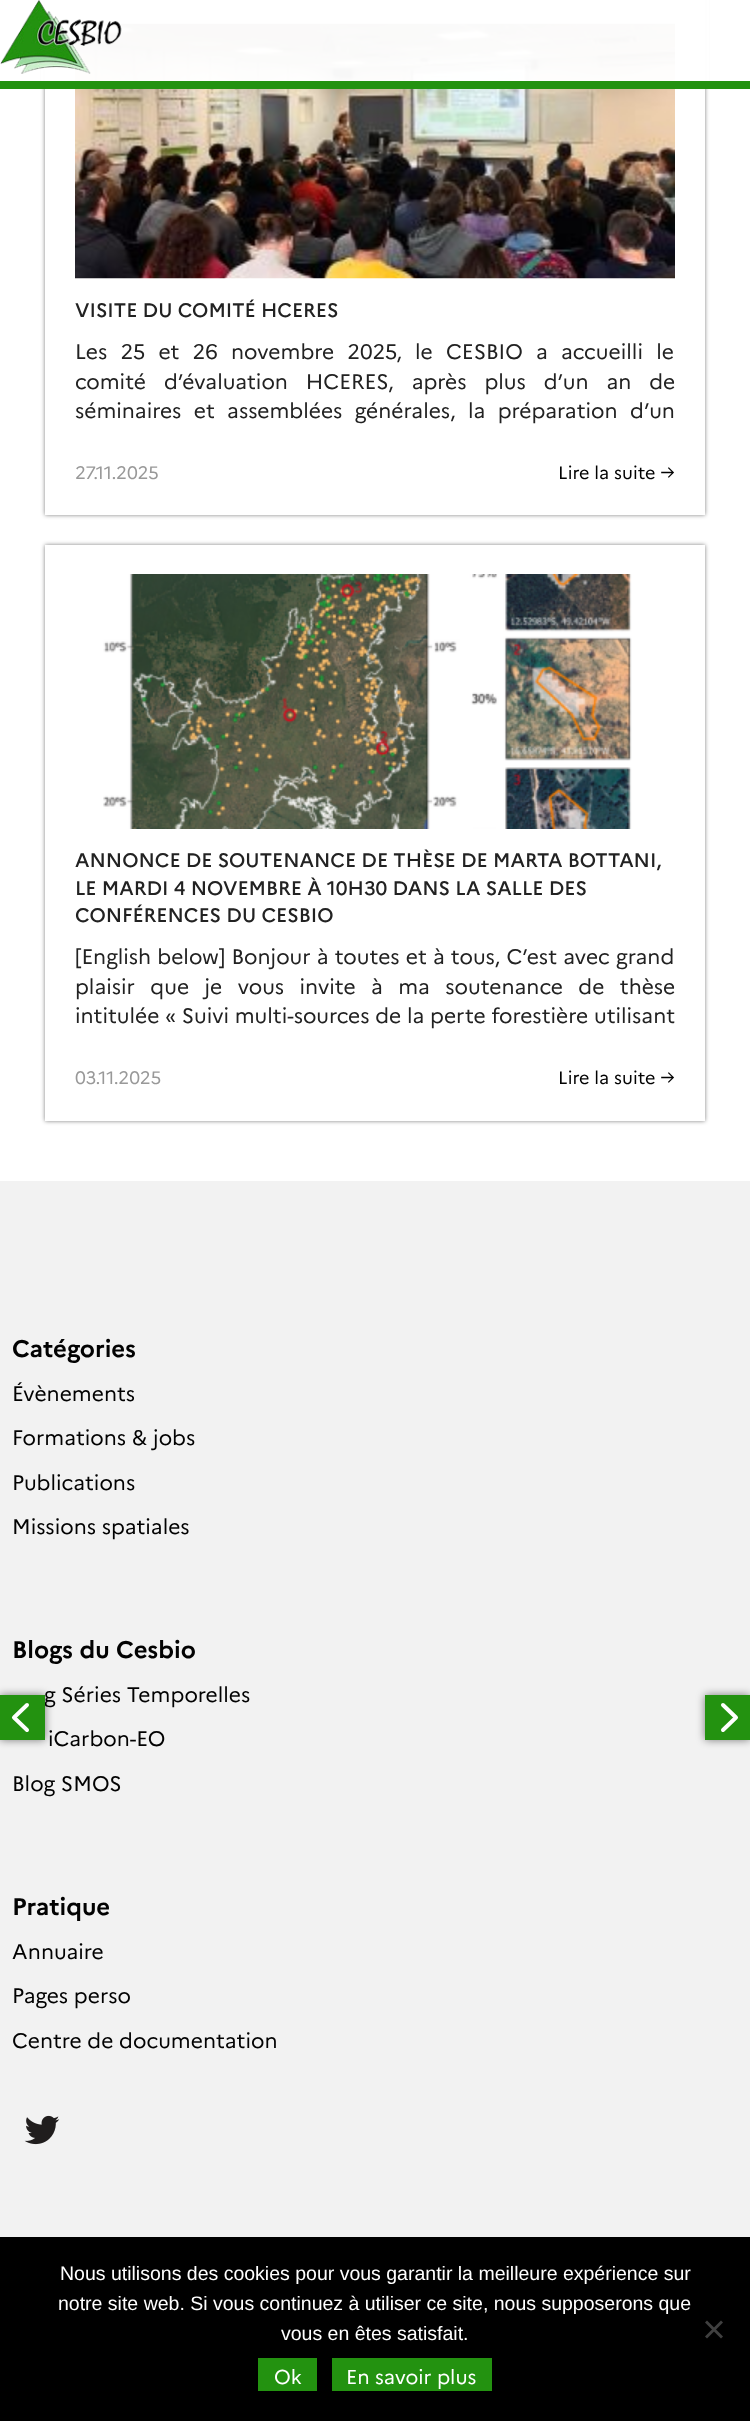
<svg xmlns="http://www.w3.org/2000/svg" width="750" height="2421">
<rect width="100%" height="100%" fill="#fff"/>
<rect x="45" y="-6" width="660" height="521" fill="#00000080" filter="blur(2px)"/>
<rect x="45" width="660" height="515" fill="#fff"/>
<image x="75" y="23" width="600" height="256" href="media/2.png"/>
<rect x="41" width="668" height="81" fill="#fffffff7"/>
<rect y="81" width="750" height="8" fill="#239210"/>
<image x="0" y="0" width="122" height="74" href="media/1.png"/>
<text x="75" y="317" style="font-family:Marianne;font-size:19.5px;font-weight:500;fill:#222">VISITE DU COMITÉ HCERES</text>
<text x="75" y="359" word-spacing="7.5" style="font-family:Marianne;font-size:21px;fill:#222">Les 25 et 26 novembre 2025, le CESBIO a accueilli le</text>
<text x="75" y="389" word-spacing="12.25" style="font-family:Marianne;font-size:21px;fill:#222">comité d’évaluation HCERES, après plus d’un an de</text>
<text x="75" y="418" word-spacing="6.75" style="font-family:Marianne;font-size:21px;fill:#222">séminaires et assemblées générales, la préparation d’un</text>
<text x="75" y="479" style="font-family:Marianne;font-size:18px;fill:#999">27.11.2025</text>
<text x="558" y="479" style="font-family:Marianne;font-size:18px;fill:#020202">Lire la suite →</text>
<rect x="45" y="545" width="660" height="576" fill="#00000080" filter="blur(2px)"/>
<rect x="45" y="545" width="660" height="576" fill="#fff"/>
<image x="103" y="574" width="529" height="255" href="media/3.png"/>
<text x="75" y="867" style="font-family:Marianne;font-size:19.5px;font-weight:500;fill:#222">ANNONCE DE SOUTENANCE DE THÈSE DE MARTA BOTTANI,</text>
<text x="75" y="895" style="font-family:Marianne;font-size:19.5px;font-weight:500;fill:#222">LE MARDI 4 NOVEMBRE À 10H30 DANS LA SALLE DES</text>
<text x="75" y="922" style="font-family:Marianne;font-size:19.5px;font-weight:500;fill:#222">CONFÉRENCES DU CESBIO</text>
<text x="75" y="964" word-spacing="0.5" style="font-family:Marianne;font-size:21px;fill:#222">[English below] Bonjour à toutes et à tous, C’est avec grand</text>
<text x="75" y="994" word-spacing="9.75" style="font-family:Marianne;font-size:21px;fill:#222">plaisir que je vous invite à ma soutenance de thèse</text>
<text x="75" y="1023" style="font-family:Marianne;font-size:21px;fill:#222">intitulée « Suivi multi-sources de la perte forestière utilisant</text>
<text x="75" y="1084" style="font-family:Marianne;font-size:18px;fill:#999">03.11.2025</text>
<text x="558" y="1084" style="font-family:Marianne;font-size:18px;fill:#020202">Lire la suite →</text>
<rect y="1181" width="750" height="1056" fill="#f2f2f2"/>
<rect y="1695" width="45" height="45" fill="#00000080" filter="blur(4px)"/>
<text x="44" y="1702" style="font-family:Marianne;font-size:21px;fill:#020202">g Séries Temporelles</text>
<rect y="1695" width="45" height="45" fill="#239210"/>
<path d="M27 1705l-13 12.5l13 12.5" fill="none" stroke="#fff" stroke-width="4" stroke-linecap="round" stroke-linejoin="round"/>
<rect x="705" y="1695" width="45" height="45" fill="#00000080" filter="blur(4px)"/>
<rect x="705" y="1695" width="45" height="45" fill="#239210"/>
<path d="M723 1705l13 12.5l-13 12.5" fill="none" stroke="#fff" stroke-width="4" stroke-linecap="round" stroke-linejoin="round"/>
<text x="12" y="1357" style="font-family:Marianne;font-size:24px;font-weight:bold;fill:#020202">Catégories</text>
<text x="12" y="1401" style="font-family:Marianne;font-size:21px;fill:#020202">Évènements</text>
<text x="12" y="1445" style="font-family:Marianne;font-size:21px;fill:#020202">Formations &amp; jobs</text>
<text x="12" y="1490" style="font-family:Marianne;font-size:21px;fill:#020202">Publications</text>
<text x="12" y="1534" style="font-family:Marianne;font-size:21px;fill:#020202">Missions spatiales</text>
<text x="12" y="1658" style="font-family:Marianne;font-size:24px;font-weight:bold;fill:#020202">Blogs du Cesbio</text>
<text x="48" y="1746" style="font-family:Marianne;font-size:21px;fill:#020202">iCarbon-EO</text>
<text x="12" y="1791" style="font-family:Marianne;font-size:21px;fill:#020202">Blog SMOS</text>
<text x="12" y="1915" style="font-family:Marianne;font-size:24px;font-weight:bold;fill:#020202">Pratique</text>
<text x="12" y="1959" style="font-family:Marianne;font-size:21px;fill:#020202">Annuaire</text>
<text x="12" y="2003" style="font-family:Marianne;font-size:21px;fill:#020202">Pages perso</text>
<text x="12" y="2048" style="font-family:Marianne;font-size:21px;fill:#020202">Centre de documentation</text>
<image x="24" y="2115" width="36" height="30" href="media/4.png"/>
<rect y="2237" width="750" height="184" fill="#000"/>
<text x="60" y="2280" style="font-family:Liberation Sans;font-size:19.5px;fill:#fff">Nous utilisons des cookies pour vous garantir la meilleure expérience sur</text>
<text x="58" y="2310" style="font-family:Liberation Sans;font-size:19.5px;fill:#fff">notre site web. Si vous continuez à utiliser ce site, nous supposerons que</text>
<text x="281" y="2340" style="font-family:Liberation Sans;font-size:19.5px;fill:#fff">vous en êtes satisfait.</text>
<path d="M721 2320.5l2 2l-16 16l-2-2z" fill="#404040"/>
<path d="M705 2322.5l2-2l16 16l-2 2z" fill="#404040"/>
<rect x="258" y="2358" width="59" height="33" fill="#239210"/>
<text x="274" y="2384" style="font-family:Marianne;font-size:20px;fill:#fff">Ok</text>
<rect x="332" y="2358" width="160" height="33" fill="#239210"/>
<text x="346" y="2384" style="font-family:Marianne;font-size:20px;fill:#fff">En savoir plus</text>
</svg>
